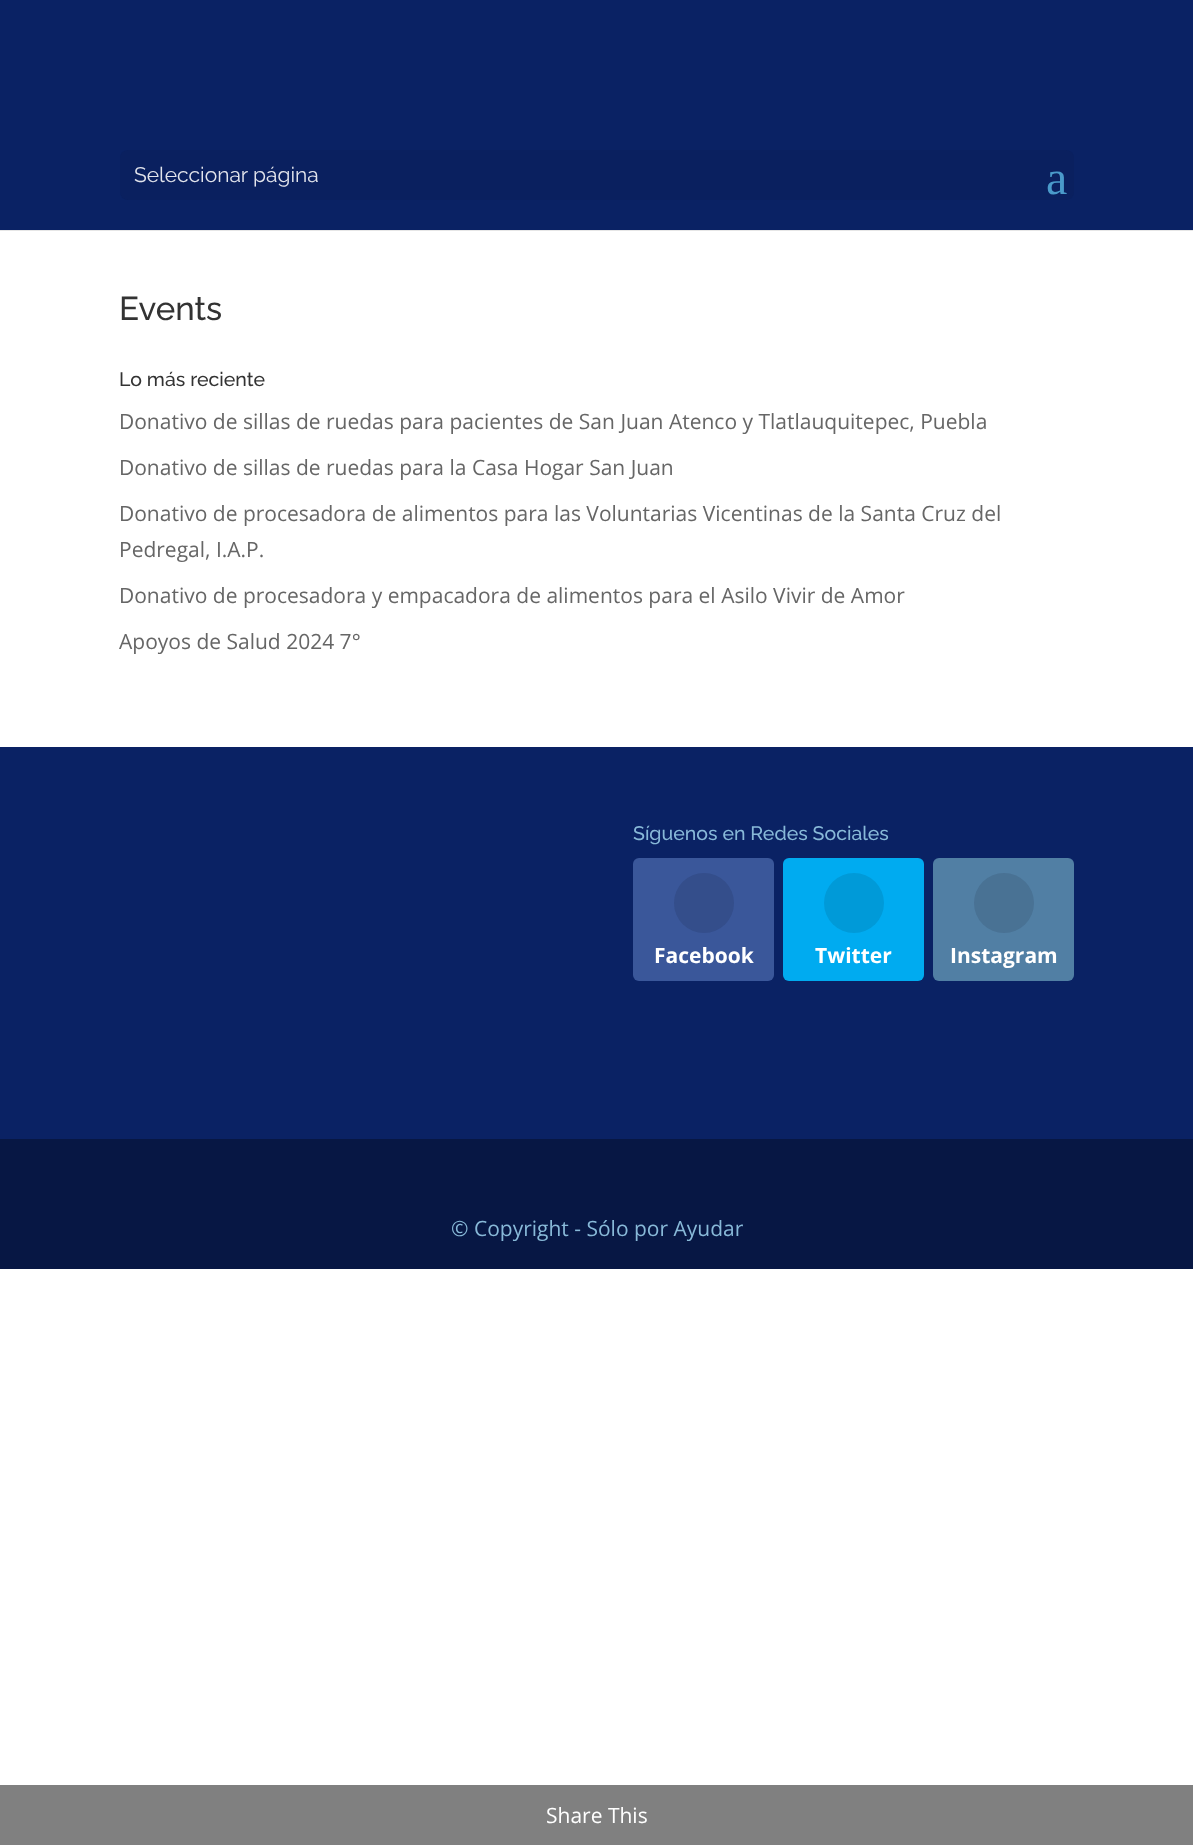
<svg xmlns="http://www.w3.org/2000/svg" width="1193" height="1845">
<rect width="100%" height="100%" fill="#fff"/>
<rect y="230" width="1193" height="1" fill="#e6e6e6"/>
<rect width="1193" height="230" fill="#0a2264"/>
<rect x="120" y="150" width="954" height="50" rx="8" fill="#0a205f"/>
<text x="134" y="182" style="font-family:Raleway;font-size:21px;fill:#e2e4ec">Seleccionar página</text>
<text x="1046" y="194" style="font-family:Liberation Serif;font-size:48px;fill:#4a9aca">a</text>
<text x="119" y="320" style="font-family:Raleway;font-size:33px;font-weight:500;fill:#333">Events</text>
<text x="119" y="386" style="font-family:Raleway;font-size:19.5px;font-weight:500;fill:#333">Lo más reciente</text>
<text x="119" y="429" style="font-family:Open Sans;font-size:21px;fill:#666">Donativo de sillas de ruedas para pacientes de San Juan Atenco y Tlatlauquitepec, Puebla</text>
<text x="119" y="475" style="font-family:Open Sans;font-size:21px;fill:#666">Donativo de sillas de ruedas para la Casa Hogar San Juan</text>
<text x="119" y="521" style="font-family:Open Sans;font-size:21px;fill:#666">Donativo de procesadora de alimentos para las Voluntarias Vicentinas de la Santa Cruz del</text>
<text x="119" y="557" style="font-family:Open Sans;font-size:21px;fill:#666">Pedregal, I.A.P.</text>
<text x="119" y="603" style="font-family:Open Sans;font-size:21px;fill:#666">Donativo de procesadora y empacadora de alimentos para el Asilo Vivir de Amor</text>
<text x="119" y="649" style="font-family:Open Sans;font-size:21px;fill:#666">Apoyos de Salud 2024 7°</text>
<rect y="747" width="1193" height="392" fill="#0a2264"/>
<text x="633" y="840" style="font-family:Raleway;font-size:19.5px;font-weight:500;fill:#88b9d8">Síguenos en Redes Sociales</text>
<rect x="633" y="858" width="141" height="123" rx="6" fill="#3a579a"/>
<circle cx="704" cy="903" r="30" fill="#344e8b"/>
<text x="654" y="963" style="font-family:Open Sans;font-size:21px;font-weight:bold;fill:#fff">Facebook</text>
<rect x="783" y="858" width="141" height="123" rx="6" fill="#00abf0"/>
<circle cx="854" cy="903" r="30" fill="#009ad8"/>
<text x="815" y="963" style="font-family:Open Sans;font-size:21px;font-weight:bold;fill:#fff">Twitter</text>
<rect x="933" y="858" width="141" height="123" rx="6" fill="#517fa4"/>
<circle cx="1004" cy="903" r="30" fill="#497294"/>
<text x="950" y="963" style="font-family:Open Sans;font-size:21px;font-weight:bold;fill:#fff">Instagram</text>
<rect y="1139" width="1193" height="130" fill="#071744"/>
<text x="451" y="1236" style="font-family:Open Sans;font-size:21px;fill:#88b9d8">© Copyright - Sólo por Ayudar</text>
<rect y="1785" width="1193" height="60" fill="#808080"/>
<text x="546" y="1823" style="font-family:Open Sans;font-size:21px;fill:#fff">Share This</text>
</svg>
